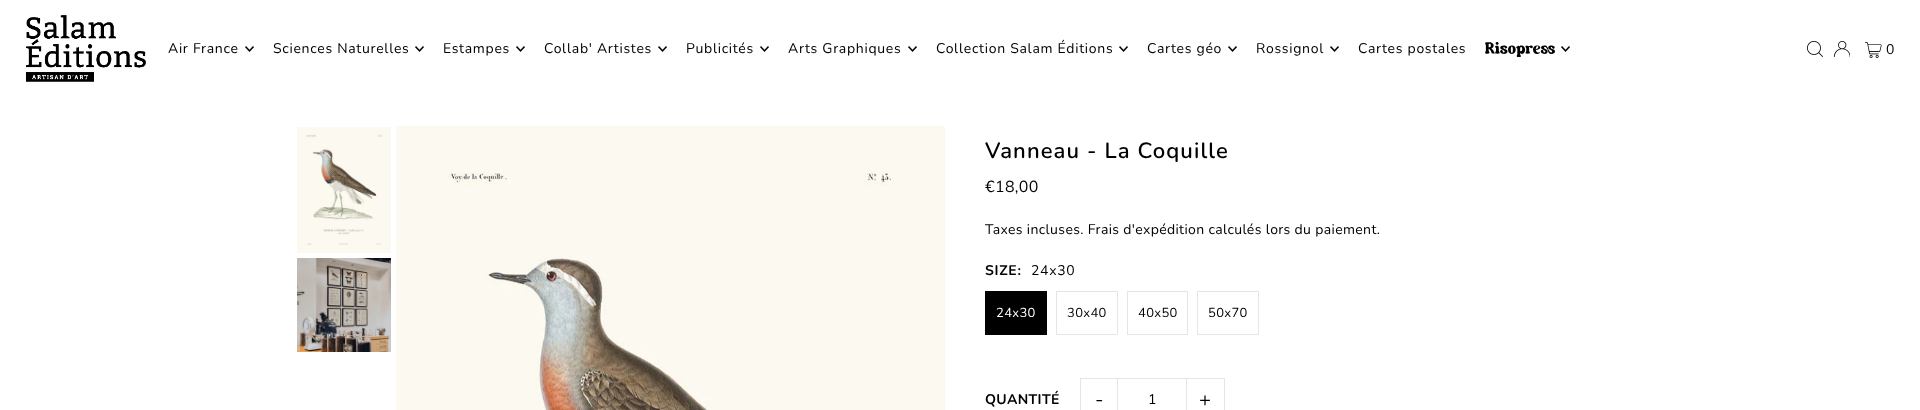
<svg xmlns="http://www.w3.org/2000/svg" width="1920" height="410">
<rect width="100%" height="100%" fill="#fff"/>
<image x="25" y="15" width="121" height="67" href="media/1.png"/>
<text x="168" y="53" style="font-family:Nunito;font-size:14px;letter-spacing:0.7px;fill:#000">Air France</text>
<image x="245" y="46" width="9" height="6" href="media/2.png"/>
<text x="273" y="53" style="font-family:Nunito;font-size:14px;letter-spacing:0.7px;fill:#000">Sciences Naturelles</text>
<image x="415" y="46" width="9" height="6" href="media/2.png"/>
<text x="443" y="53" style="font-family:Nunito;font-size:14px;letter-spacing:0.7px;fill:#000">Estampes</text>
<image x="516" y="46" width="9" height="6" href="media/2.png"/>
<text x="544" y="53" style="font-family:Nunito;font-size:14px;letter-spacing:0.7px;fill:#000">Collab' Artistes</text>
<image x="658" y="46" width="9" height="6" href="media/2.png"/>
<text x="686" y="53" style="font-family:Nunito;font-size:14px;letter-spacing:0.7px;fill:#000">Publicités</text>
<image x="760" y="46" width="9" height="6" href="media/2.png"/>
<text x="788" y="53" style="font-family:Nunito;font-size:14px;letter-spacing:0.7px;fill:#000">Arts Graphiques</text>
<image x="908" y="46" width="9" height="6" href="media/2.png"/>
<text x="936" y="53" style="font-family:Nunito;font-size:14px;letter-spacing:0.7px;fill:#000">Collection Salam Éditions</text>
<image x="1119" y="46" width="9" height="6" href="media/2.png"/>
<text x="1147" y="53" style="font-family:Nunito;font-size:14px;letter-spacing:0.7px;fill:#000">Cartes géo</text>
<image x="1228" y="46" width="9" height="6" href="media/2.png"/>
<text x="1256" y="53" style="font-family:Nunito;font-size:14px;letter-spacing:0.7px;fill:#000">Rossignol</text>
<image x="1330" y="46" width="9" height="6" href="media/2.png"/>
<text x="1358" y="53" style="font-family:Nunito;font-size:14px;letter-spacing:0.7px;fill:#000">Cartes postales</text>
<image x="1485" y="42" width="70" height="15" href="media/3.png"/>
<image x="1561" y="46" width="9" height="6" href="media/2.png"/>
<image x="1807" y="41" width="16" height="16" href="media/4.png"/>
<image x="1834" y="41" width="16" height="16" href="media/5.png"/>
<image x="1865" y="42" width="17" height="16" href="media/6.png"/>
<text x="1886" y="54" style="font-family:Nunito;font-size:14px;letter-spacing:0.35px;fill:#000">0</text>
<image x="297" y="127" width="94" height="126" href="media/7.png"/>
<image x="297" y="258" width="94" height="94" href="media/8.png"/>
<image x="396" y="126" width="549" height="284" href="media/9.png"/>
<text x="985" y="158" style="font-family:Nunito;font-size:22px;font-weight:600;letter-spacing:1.1px;fill:#000">Vanneau - La Coquille</text>
<text x="985" y="192" style="font-family:Nunito;font-size:16px;letter-spacing:0.35px;fill:#000">€18,00</text>
<text x="985" y="234" style="font-family:Nunito;font-size:14px;letter-spacing:0.35px;fill:#000">Taxes incluses. Frais d'expédition calculés lors du paiement.</text>
<text x="985" y="275" style="font-family:Nunito;font-size:14px;font-weight:bold;letter-spacing:0.7px;fill:#000">SIZE:</text>
<text x="1031" y="275" style="font-family:Nunito;font-size:14px;letter-spacing:0.7px;fill:#000">24x30</text>
<rect x="985" y="291" width="62" height="44" fill="#000"/>
<text x="996" y="317" style="font-family:Nunito;font-size:13px;letter-spacing:0.35px;fill:#fff">24x30</text>
<rect x="1056.5" y="291.5" width="61" height="43" fill="none" stroke="#e5e5e5"/>
<text x="1067" y="317" style="font-family:Nunito;font-size:13px;letter-spacing:0.35px;fill:#000">30x40</text>
<rect x="1127.5" y="291.5" width="60" height="43" fill="none" stroke="#e5e5e5"/>
<text x="1138" y="317" style="font-family:Nunito;font-size:13px;letter-spacing:0.35px;fill:#000">40x50</text>
<rect x="1197.5" y="291.5" width="61" height="43" fill="none" stroke="#e5e5e5"/>
<text x="1208" y="317" style="font-family:Nunito;font-size:13px;letter-spacing:0.35px;fill:#000">50x70</text>
<text x="985" y="404" style="font-family:Nunito;font-size:14px;font-weight:bold;letter-spacing:0.35px;fill:#000">QUANTITÉ</text>
<rect x="1080" y="378" width="38" height="1" fill="#e5e5e5"/>
<rect x="1080" y="378" width="1" height="32" fill="#e5e5e5"/>
<text x="1095" y="406" style="font-family:Nunito;font-size:20px;fill:#000">-</text>
<rect x="1117.5" y="378.5" width="69" height="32" fill="none" stroke="#e5e5e5"/>
<text x="1148" y="404" style="font-family:Nunito;font-size:14px;letter-spacing:0.35px;fill:#000">1</text>
<rect x="1187" y="378" width="38" height="1" fill="#e5e5e5"/>
<rect x="1224" y="378" width="1" height="32" fill="#e5e5e5"/>
<text x="1199" y="406" style="font-family:Nunito;font-size:20px;fill:#000">+</text>
</svg>
